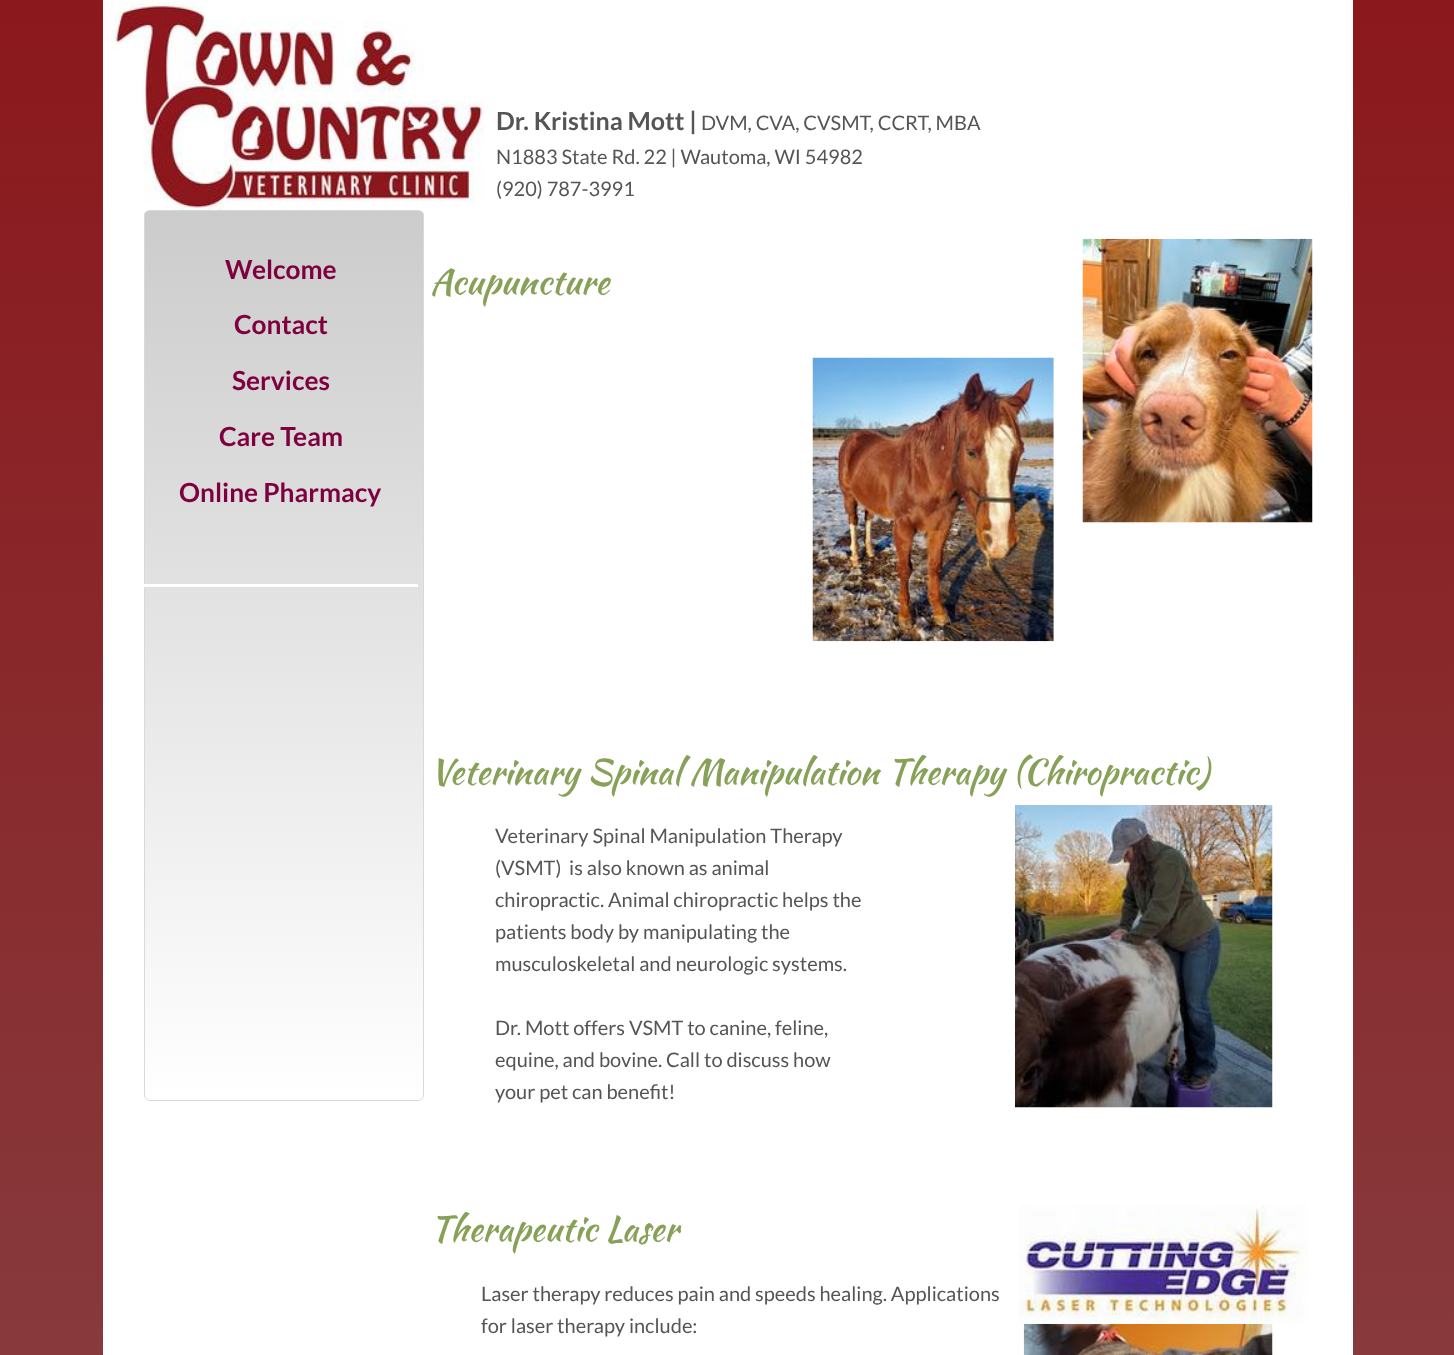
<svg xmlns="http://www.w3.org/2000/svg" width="1454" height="1355">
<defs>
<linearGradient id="g1" gradientUnits="userSpaceOnUse" x1="750" y1="0" x2="750" y2="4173"><stop offset="0" stop-color="#8b181c"/><stop offset="1" stop-color="#7f7f7f"/></linearGradient>
<clipPath id="clip1"><rect x="144" y="210" width="280" height="891" rx="6"/></clipPath>
<linearGradient id="g2" gradientUnits="userSpaceOnUse" x1="284" y1="211" x2="284" y2="1100"><stop offset="0" stop-color="#ccc"/><stop offset="1" stop-color="#fff"/></linearGradient>
</defs>
<rect width="100%" height="100%" fill="#fff"/>
<rect width="1454" height="1355" fill="url(#g1)"/>
<rect x="103" width="1250" height="1355" fill="#fff"/>
<image x="104" y="1" width="380" height="209" href="media/1.png"/>
<text x="496" y="130" style="font-family:Lato;font-size:25px;font-weight:bold;fill:#555">Dr. Kristina Mott |</text>
<text x="701" y="130" style="font-family:Lato;font-size:20px;fill:#555">DVM, CVA, CVSMT, CCRT, MBA</text>
<text x="496" y="164" style="font-family:Lato;font-size:20px;fill:#555">N1883 State Rd. 22 | Wautoma, WI 54982</text>
<text x="496" y="196" style="font-family:Lato;font-size:20px;fill:#555">(920) 787-3991</text>
<g clip-path="url(#clip1)">
<rect x="144" y="211" width="280" height="889" fill="url(#g2)"/>
</g>
<rect x="144.5" y="210.5" width="279" height="890" rx="5.5" fill="none" stroke="#d9d9d8"/>
<image x="1082" y="238" width="231" height="285" href="media/2.png"/>
<text x="225" y="279" style="font-family:Lato;font-size:26.25px;font-weight:bold;fill:#7f003f">Welcome</text>
<text x="234" y="334" style="font-family:Lato;font-size:26.25px;font-weight:bold;fill:#7f003f">Contact</text>
<text x="232" y="390" style="font-family:Lato;font-size:26.25px;font-weight:bold;fill:#7f003f">Services</text>
<text x="219" y="446" style="font-family:Lato;font-size:26.25px;font-weight:bold;fill:#7f003f">Care Team</text>
<text x="179" y="502" style="font-family:Lato;font-size:26.25px;font-weight:bold;fill:#7f003f">Online Pharmacy</text>
<text x="430" y="294" style="font-family:Kaushan Script;font-size:35px;fill:#88a158">Acupuncture</text>
<rect x="144" y="584" width="274" height="3" fill="#fff"/>
<image x="812" y="357" width="242" height="285" href="media/3.png"/>
<text x="430" y="784" style="font-family:Kaushan Script;font-size:35px;fill:#88a158">Veterinary Spinal Manipulation Therapy (Chiropractic)</text>
<text x="495" y="843" style="font-family:Lato;font-size:20px;fill:#555">Veterinary Spinal Manipulation Therapy</text>
<text x="495" y="875" style="font-family:Lato;font-size:20px;fill:#555" xml:space="preserve">(VSMT)  is also known as animal</text>
<text x="495" y="907" style="font-family:Lato;font-size:20px;fill:#555">chiropractic. Animal chiropractic helps the</text>
<text x="495" y="939" style="font-family:Lato;font-size:20px;fill:#555">patients body by manipulating the</text>
<text x="495" y="971" style="font-family:Lato;font-size:20px;fill:#555">musculoskeletal and neurologic systems.</text>
<text x="495" y="1035" style="font-family:Lato;font-size:20px;fill:#555">Dr. Mott offers VSMT to canine, feline,</text>
<text x="495" y="1067" style="font-family:Lato;font-size:20px;fill:#555">equine, and bovine. Call to discuss how</text>
<text x="495" y="1099" style="font-family:Lato;font-size:20px;fill:#555">your pet can benefit!</text>
<image x="1015" y="805" width="258" height="303" href="media/4.png"/>
<text x="430" y="1241" style="font-family:Kaushan Script;font-size:35px;fill:#88a158">Therapeutic Laser</text>
<image x="1023" y="1323" width="250" height="32" href="media/6.png"/>
<image x="1019" y="1205" width="289" height="119" href="media/5.png"/>
<text x="481" y="1301" style="font-family:Lato;font-size:20px;fill:#555">Laser therapy reduces pain and speeds healing. Applications</text>
<text x="481" y="1333" style="font-family:Lato;font-size:20px;fill:#555">for laser therapy include:</text>
</svg>
